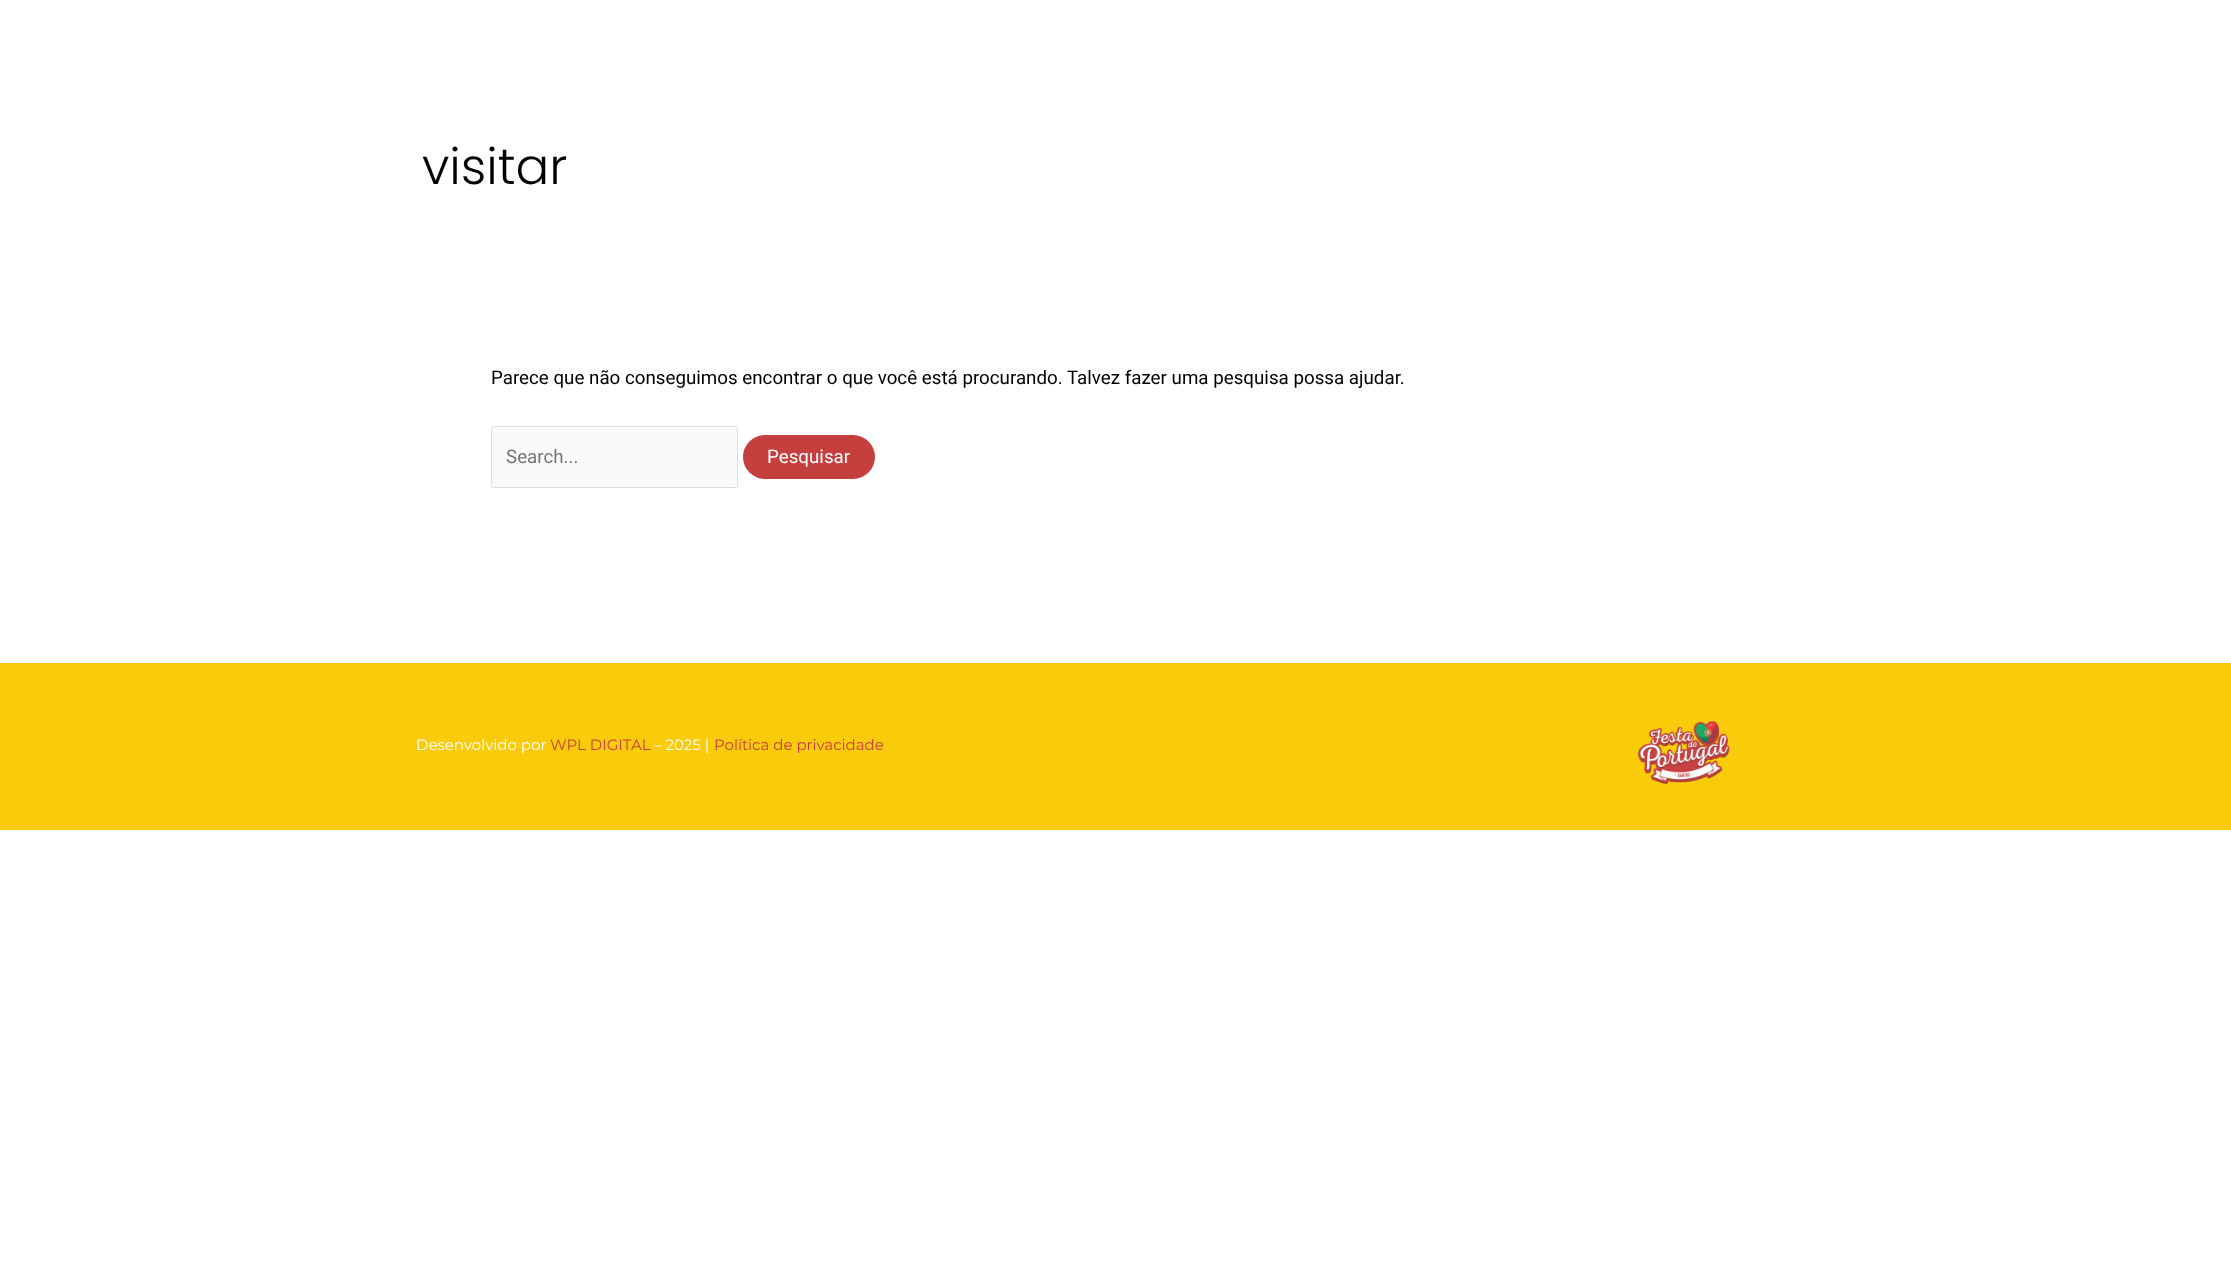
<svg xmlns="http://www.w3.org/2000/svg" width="2231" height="1280">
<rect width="100%" height="100%" fill="#fff"/>
<text x="422" y="184" style="font-family:Poppins;font-size:50px;font-weight:300;fill:#000">visitar</text>
<text x="491" y="384" style="font-family:Roboto;font-size:18.75px;fill:#000">Parece que não conseguimos encontrar o que você está procurando. Talvez fazer uma pesquisa possa ajudar.</text>
<rect x="491.5" y="426.5" width="246" height="61" rx="2" fill="#fafafa" stroke="#ddd"/>
<text x="506" y="463" style="font-family:Roboto;font-size:18.75px;fill:#757575">Search...</text>
<rect x="743" y="435" width="132" height="44" rx="22" fill="#c53f3f"/>
<text x="767" y="463" style="font-family:Roboto;font-size:18.75px;fill:#fff">Pesquisar</text>
<rect y="663" width="2231" height="167" fill="#f9cb0b"/>
<text x="416" y="750" style="font-family:Montserrat;font-size:15px;fill:#fff">Desenvolvido por</text>
<text x="550" y="750" style="font-family:Montserrat;font-size:15px;fill:#c53f3f">WPL DIGITAL</text>
<text x="654" y="750" style="font-family:Montserrat;font-size:15px;fill:#fff">– 2025 |</text>
<text x="714" y="750" style="font-family:Montserrat;font-size:15px;fill:#c53f3f">Política de privacidade</text>
<image x="1638" y="721" width="92" height="64" href="media/1.png"/>
</svg>
